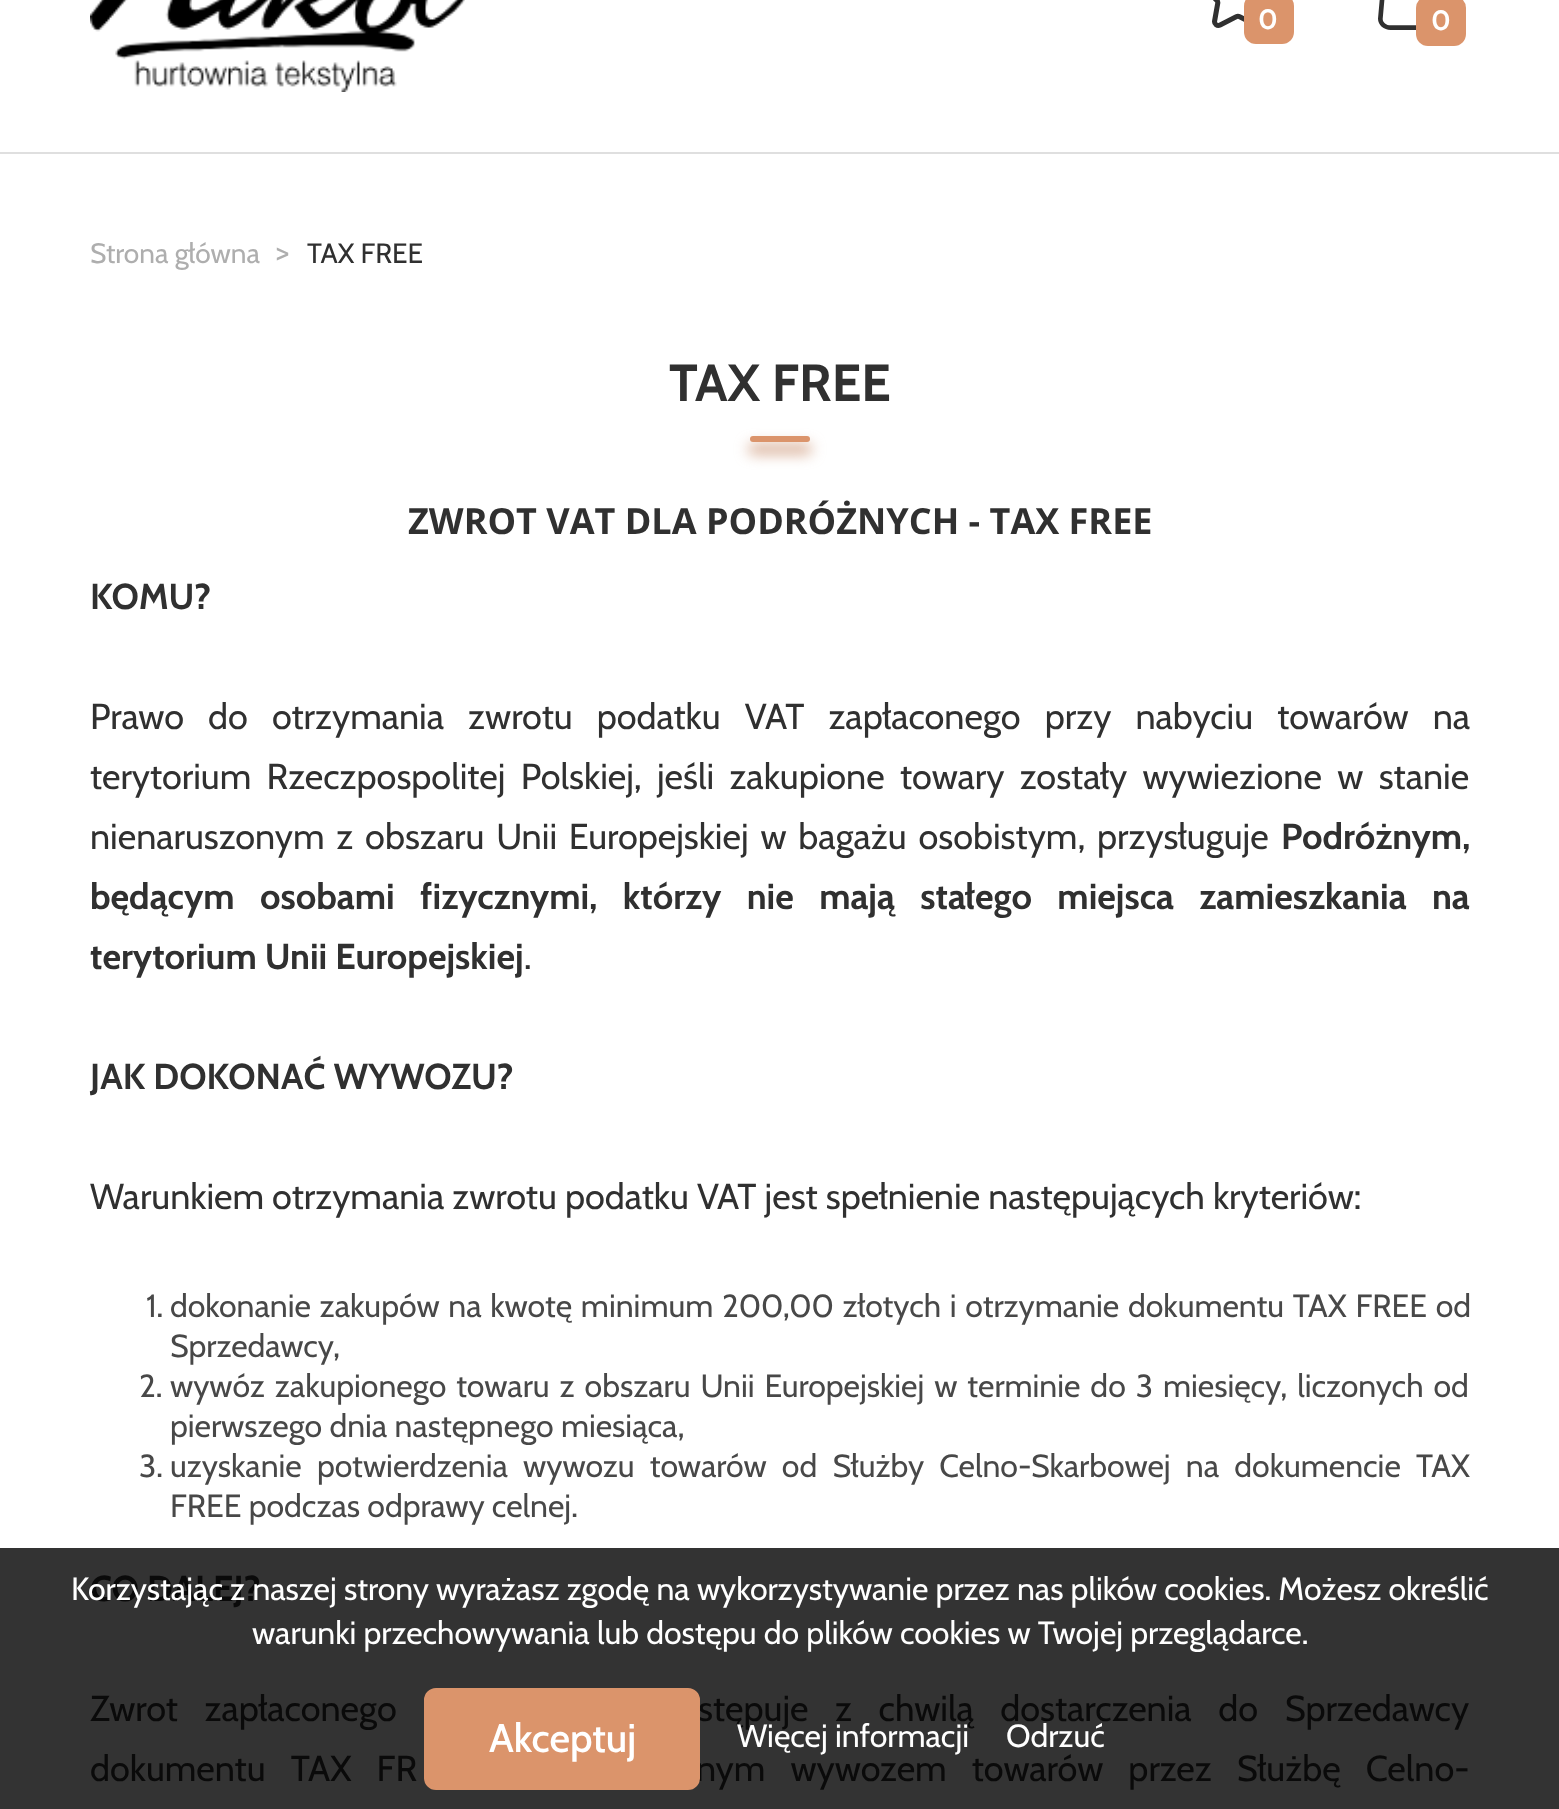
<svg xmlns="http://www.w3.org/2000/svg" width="1559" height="1809">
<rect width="100%" height="100%" fill="#fff"/>
<rect y="1548" width="1559" height="261" fill="#333"/>
<rect y="152" width="1559" height="2" fill="#dfdfdf"/>
<image x="90" y="0" width="375" height="92" href="media/1.png"/>
<image x="1212" y="0" width="34" height="28" href="media/2.png"/>
<rect x="1244" y="-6" width="50" height="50" rx="12" fill="#db946b"/>
<text x="1258" y="29" style="font-family:Cabin;font-size:28px;font-weight:bold;fill:#fff">0</text>
<image x="1378" y="0" width="38" height="30" href="media/3.png"/>
<rect x="1416" y="-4" width="50" height="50" rx="12" fill="#db946b"/>
<text x="1431" y="30" style="font-family:Cabin;font-size:28px;font-weight:bold;fill:#fff">0</text>
<text x="90" y="263" style="font-family:Cabin;font-size:28px;fill:#aeaeae">Strona główna</text>
<text x="276" y="263" style="font-family:Cabin;font-size:32px;fill:#aeaeae">&gt;</text>
<text x="307" y="263" style="font-family:Cabin;font-size:28px;fill:#303030">TAX FREE</text>
<text x="669" y="401" style="font-family:Cabin;font-size:52px;font-weight:bold;fill:#303030">TAX FREE</text>
<rect x="748" y="444" width="64" height="10" rx="5" fill="#cc9575cc" filter="blur(7px)"/>
<rect x="750" y="436" width="60" height="6" rx="3" fill="#db946b"/>
<text x="408" y="534" style="font-family:Open Sans;font-size:36px;font-weight:bold;fill:#303030">ZWROT VAT DLA PODRÓŻNYCH - TAX FREE</text>
<text x="90" y="609" style="font-family:Cabin;font-size:36px;font-weight:bold;fill:#303030">KOMU?</text>
<text x="90" y="729" word-spacing="16" style="font-family:Cabin;font-size:36px;fill:#303030">Prawo do otrzymania zwrotu podatku VAT zapłaconego przy nabyciu towarów na</text>
<text x="90" y="789" word-spacing="7.25" style="font-family:Cabin;font-size:36px;fill:#303030">terytorium Rzeczpospolitej Polskiej, jeśli zakupione towary zostały wywiezione w stanie</text>
<text x="90" y="849" word-spacing="3.75" style="font-family:Cabin;font-size:36px;fill:#303030">nienaruszonym z obszaru Unii Europejskiej w bagażu osobistym, przysługuje</text>
<text x="1281" y="849" style="font-family:Cabin;font-size:36px;font-weight:bold;fill:#303030">Podróżnym,</text>
<text x="90" y="909" word-spacing="17.25" style="font-family:Cabin;font-size:36px;font-weight:bold;fill:#303030">będącym osobami fizycznymi, którzy nie mają stałego miejsca zamieszkania na</text>
<text x="90" y="969" style="font-family:Cabin;font-size:36px;font-weight:bold;fill:#303030">terytorium Unii Europejskiej</text>
<text x="524" y="969" style="font-family:Cabin;font-size:36px;fill:#303030">.</text>
<text x="90" y="1089" style="font-family:Cabin;font-size:36px;font-weight:bold;fill:#303030">JAK DOKONAĆ WYWOZU?</text>
<text x="90" y="1209" style="font-family:Cabin;font-size:36px;fill:#303030">Warunkiem otrzymania zwrotu podatku VAT jest spełnienie następujących kryteriów:</text>
<text x="146" y="1317" style="font-family:Cabin;font-size:32px;fill:#484848">1.</text>
<text x="170" y="1317" word-spacing="1.5" style="font-family:Cabin;font-size:32px;fill:#484848">dokonanie zakupów na kwotę minimum 200,00 złotych i otrzymanie dokumentu TAX FREE od</text>
<text x="170" y="1357" style="font-family:Cabin;font-size:32px;fill:#484848">Sprzedawcy,</text>
<text x="139" y="1397" style="font-family:Cabin;font-size:32px;fill:#484848">2.</text>
<text x="170" y="1397" word-spacing="2.75" style="font-family:Cabin;font-size:32px;fill:#484848">wywóz zakupionego towaru z obszaru Unii Europejskiej w terminie do 3 miesięcy, liczonych od</text>
<text x="170" y="1437" style="font-family:Cabin;font-size:32px;fill:#484848">pierwszego dnia następnego miesiąca,</text>
<text x="139" y="1477" style="font-family:Cabin;font-size:32px;fill:#484848">3.</text>
<text x="170" y="1477" word-spacing="8" style="font-family:Cabin;font-size:32px;fill:#484848">uzyskanie potwierdzenia wywozu towarów od Służby Celno-Skarbowej na dokumencie TAX</text>
<text x="170" y="1517" style="font-family:Cabin;font-size:32px;fill:#484848">FREE podczas odprawy celnej.</text>
<text x="90" y="1601" style="font-family:Cabin;font-size:36px;font-weight:bold;fill:#0a0a0a">CO DALEJ?</text>
<text x="90" y="1721" word-spacing="18.5" style="font-family:Cabin;font-size:36px;fill:#0a0a0a">Zwrot zapłaconego</text>
<text x="698" y="1721" word-spacing="18.5" style="font-family:Cabin;font-size:36px;fill:#0a0a0a">stępuje z chwilą dostarczenia do Sprzedawcy</text>
<text x="90" y="1781" word-spacing="17" style="font-family:Cabin;font-size:36px;fill:#0a0a0a">dokumentu TAX FR</text>
<text x="696" y="1781" word-spacing="17" style="font-family:Cabin;font-size:36px;fill:#0a0a0a">nym wywozem towarów przez Służbę Celno-</text>
<text x="71" y="1600" style="font-family:Cabin;font-size:32px;fill:#fff">Korzystając z naszej strony wyrażasz zgodę na wykorzystywanie przez nas plików cookies. Możesz określić</text>
<text x="252" y="1644" style="font-family:Cabin;font-size:32px;fill:#fff">warunki przechowywania lub dostępu do plików cookies w Twojej przeglądarce.</text>
<rect x="426" y="1690" width="272" height="98" rx="10" fill="#db946b" stroke="#db946b" stroke-width="4"/>
<text x="489" y="1752" style="font-family:Cabin;font-size:40px;font-weight:500;fill:#fff">Akceptuj</text>
<text x="737" y="1747" style="font-family:Cabin;font-size:32px;fill:#fff">Więcej informacji</text>
<text x="1006" y="1747" style="font-family:Cabin;font-size:32px;fill:#fff">Odrzuć</text>
</svg>
